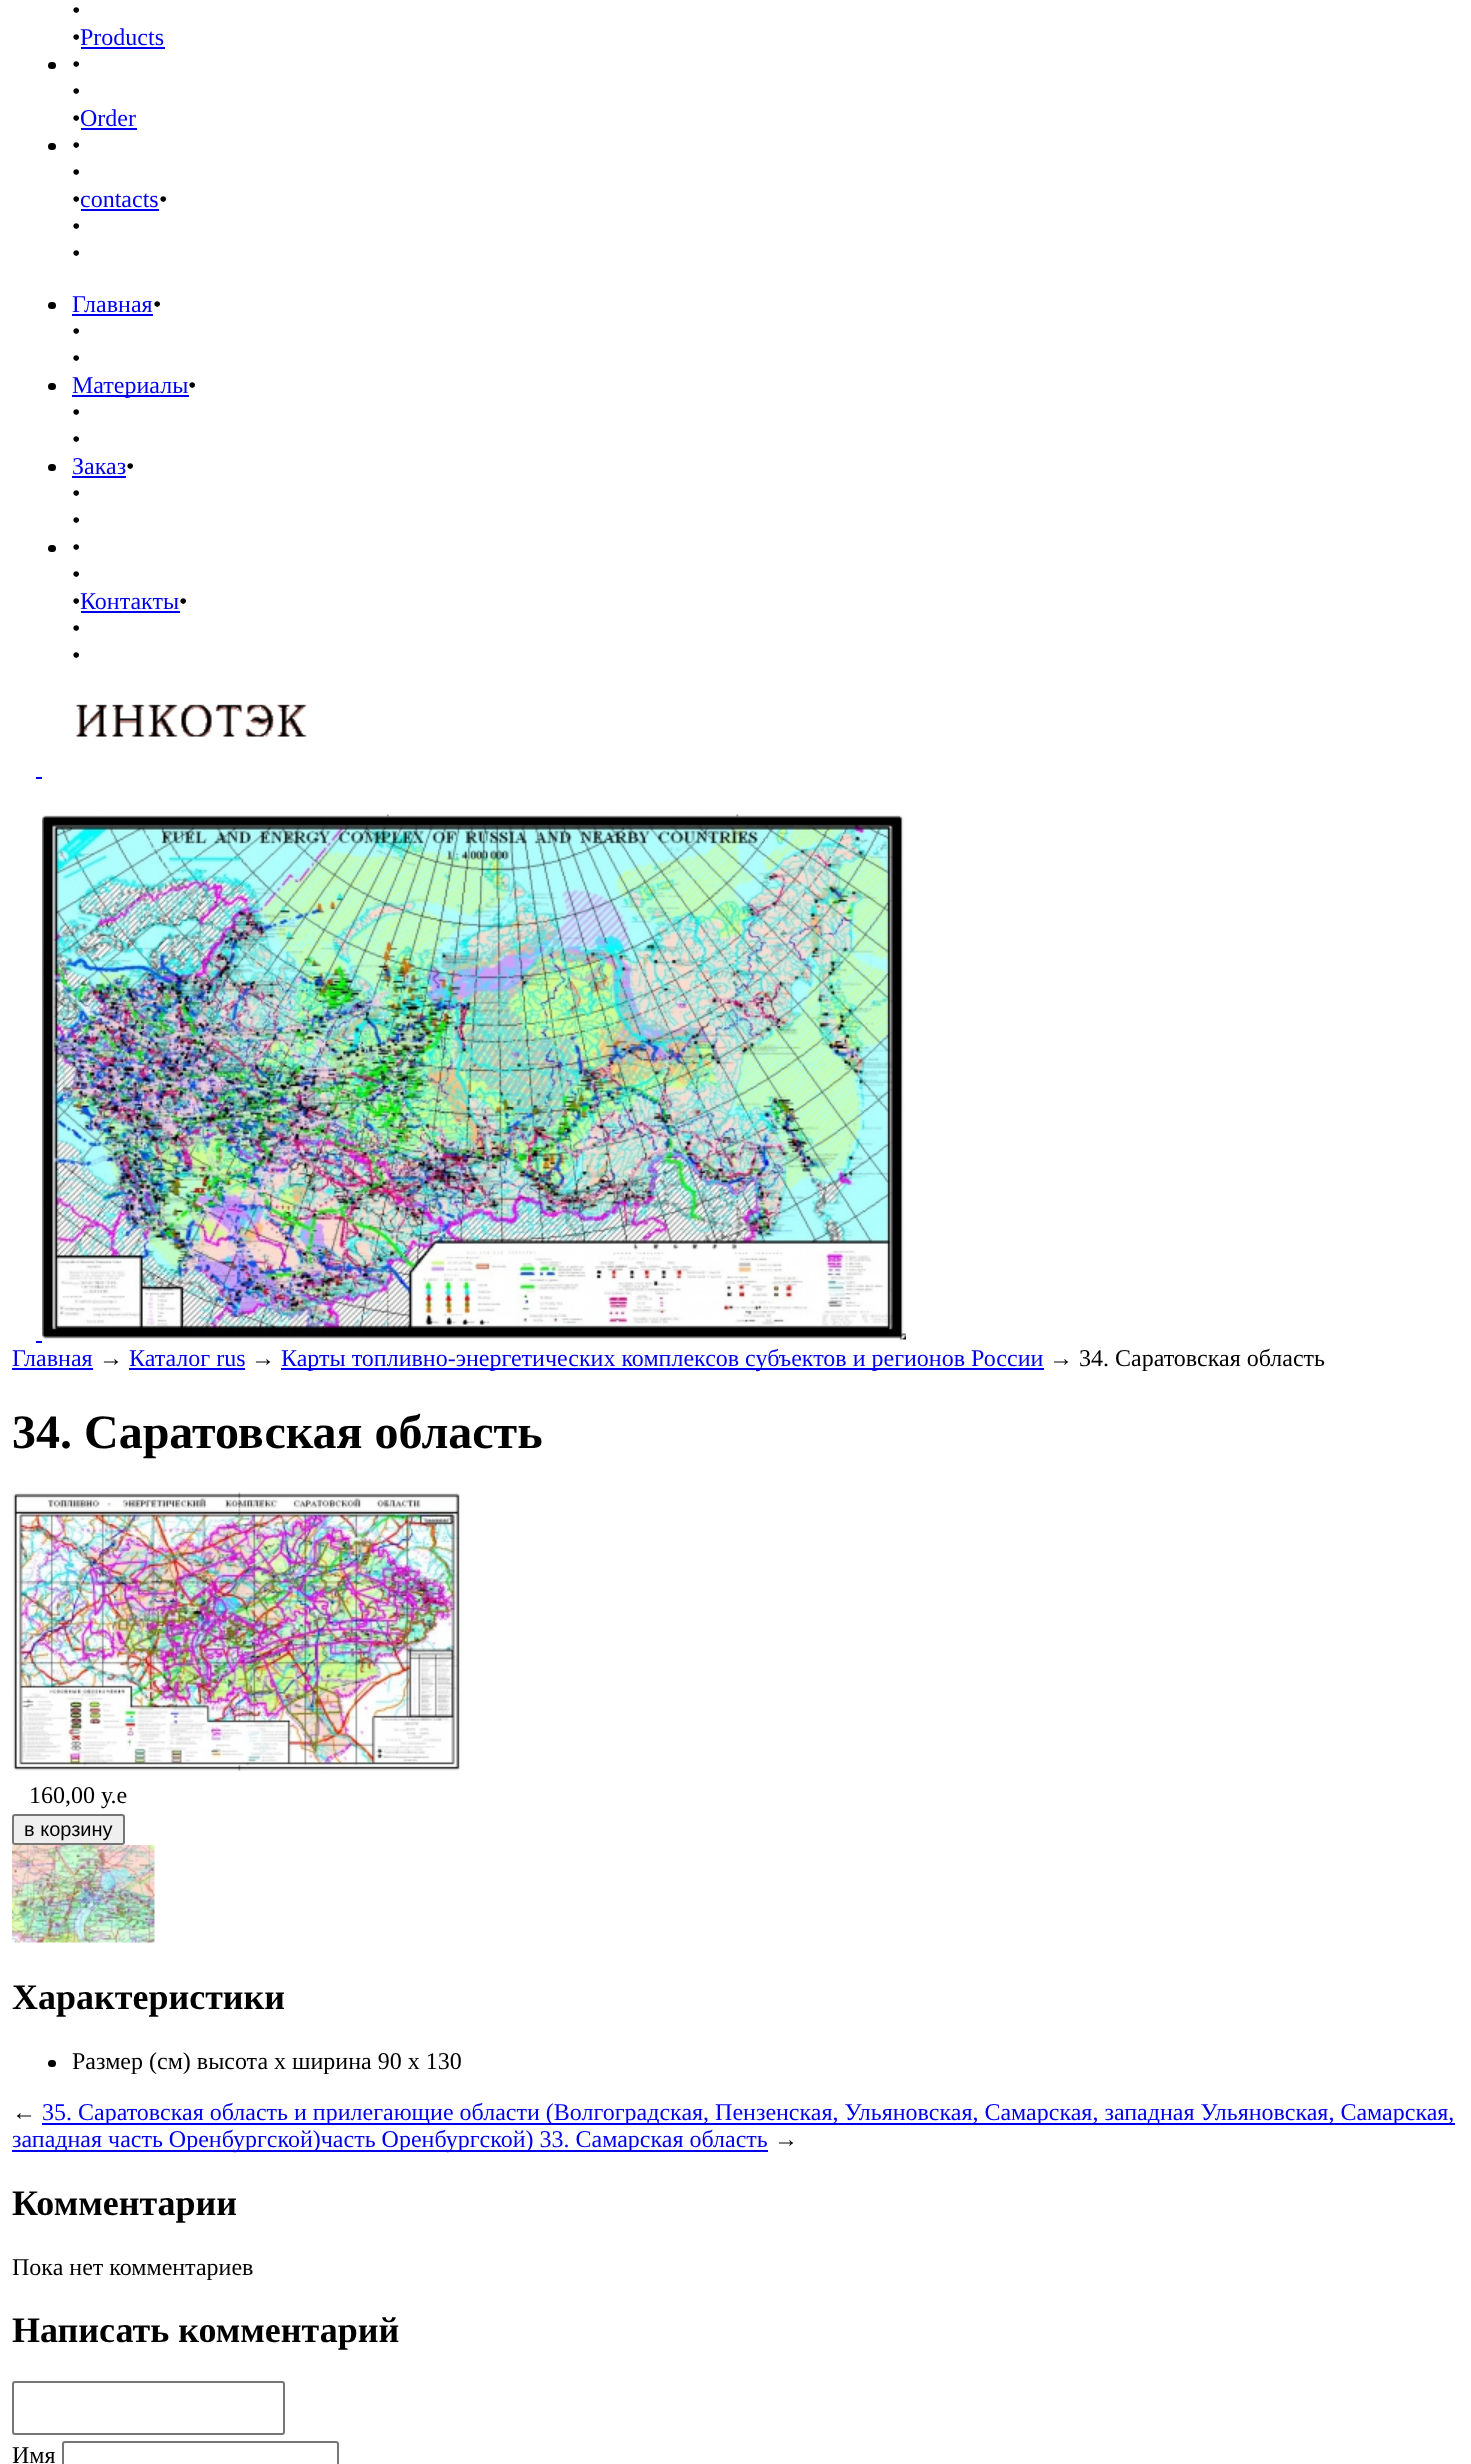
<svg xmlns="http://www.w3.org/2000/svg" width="1471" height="2464">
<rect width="100%" height="100%" fill="#fff"/>
<text x="72" y="18" style="font-family:Liberation Serif;font-size:24px;fill:#000">•</text>
<text x="72" y="45" style="font-family:Liberation Serif;font-size:24px;fill:#000">•</text>
<text x="80" y="45" style="font-family:Liberation Serif;font-size:24px;fill:#00e">Products</text>
<rect x="81" y="47" width="84" height="2" fill="#00e"/>
<rect x="48" y="62" width="8" height="7" rx="3.5" fill="#000"/>
<text x="72" y="72" style="font-family:Liberation Serif;font-size:24px;fill:#000">•</text>
<text x="72" y="99" style="font-family:Liberation Serif;font-size:24px;fill:#000">•</text>
<text x="72" y="126" style="font-family:Liberation Serif;font-size:24px;fill:#000">•</text>
<text x="80" y="126" style="font-family:Liberation Serif;font-size:24px;fill:#00e">Order</text>
<rect x="81" y="128" width="56" height="2" fill="#00e"/>
<rect x="48" y="143" width="8" height="7" rx="3.5" fill="#000"/>
<text x="72" y="153" style="font-family:Liberation Serif;font-size:24px;fill:#000">•</text>
<text x="72" y="180" style="font-family:Liberation Serif;font-size:24px;fill:#000">•</text>
<text x="72" y="207" style="font-family:Liberation Serif;font-size:24px;fill:#000">•</text>
<text x="80" y="207" style="font-family:Liberation Serif;font-size:24px;fill:#00e">contacts</text>
<rect x="81" y="209" width="78" height="2" fill="#00e"/>
<text x="159" y="207" style="font-family:Liberation Serif;font-size:24px;fill:#000">•</text>
<text x="72" y="234" style="font-family:Liberation Serif;font-size:24px;fill:#000">•</text>
<text x="72" y="261" style="font-family:Liberation Serif;font-size:24px;fill:#000">•</text>
<rect x="48" y="302" width="8" height="7" rx="3.5" fill="#000"/>
<text x="72" y="312" style="font-family:Liberation Serif;font-size:24px;fill:#00e">Главная</text>
<rect x="72" y="314" width="81" height="2" fill="#00e"/>
<text x="153" y="312" style="font-family:Liberation Serif;font-size:24px;fill:#000">•</text>
<text x="72" y="339" style="font-family:Liberation Serif;font-size:24px;fill:#000">•</text>
<text x="72" y="366" style="font-family:Liberation Serif;font-size:24px;fill:#000">•</text>
<rect x="48" y="383" width="8" height="7" rx="3.5" fill="#000"/>
<rect x="72" y="395" width="117" height="2" fill="#00e"/>
<text x="72" y="393" style="font-family:Liberation Serif;font-size:24px;fill:#00e">Материалы</text>
<text x="188" y="393" style="font-family:Liberation Serif;font-size:24px;fill:#000">•</text>
<text x="72" y="420" style="font-family:Liberation Serif;font-size:24px;fill:#000">•</text>
<text x="72" y="447" style="font-family:Liberation Serif;font-size:24px;fill:#000">•</text>
<rect x="48" y="464" width="8" height="7" rx="3.5" fill="#000"/>
<text x="72" y="474" style="font-family:Liberation Serif;font-size:24px;fill:#00e">Заказ</text>
<rect x="72" y="476" width="54" height="2" fill="#00e"/>
<text x="126" y="474" style="font-family:Liberation Serif;font-size:24px;fill:#000">•</text>
<text x="72" y="501" style="font-family:Liberation Serif;font-size:24px;fill:#000">•</text>
<text x="72" y="528" style="font-family:Liberation Serif;font-size:24px;fill:#000">•</text>
<rect x="48" y="545" width="8" height="7" rx="3.5" fill="#000"/>
<text x="72" y="555" style="font-family:Liberation Serif;font-size:24px;fill:#000">•</text>
<text x="72" y="582" style="font-family:Liberation Serif;font-size:24px;fill:#000">•</text>
<text x="72" y="609" style="font-family:Liberation Serif;font-size:24px;fill:#000">•</text>
<text x="80" y="609" style="font-family:Liberation Serif;font-size:24px;fill:#00e">Контакты</text>
<rect x="81" y="611" width="99" height="2" fill="#00e"/>
<text x="179" y="609" style="font-family:Liberation Serif;font-size:24px;fill:#000">•</text>
<text x="72" y="636" style="font-family:Liberation Serif;font-size:24px;fill:#000">•</text>
<text x="72" y="663" style="font-family:Liberation Serif;font-size:24px;fill:#000">•</text>
<image x="76" y="704" width="231" height="33" href="media/1.png"/>
<rect x="36" y="777" width="6" height="2" fill="#00e"/>
<image x="42" y="814" width="864" height="526" href="media/2.png"/>
<rect x="36" y="1341" width="6" height="2" fill="#00e"/>
<text x="12" y="1366" style="font-family:Liberation Serif;font-size:24px;fill:#00e">Главная</text>
<rect x="12" y="1368" width="81" height="2" fill="#00e"/>
<text x="99" y="1366" style="font-family:Liberation Serif;font-size:24px;fill:#000">→</text>
<text x="129" y="1366" style="font-family:Liberation Serif;font-size:24px;fill:#00e">Каталог rus</text>
<rect x="129" y="1368" width="116" height="2" fill="#00e"/>
<text x="251" y="1366" style="font-family:Liberation Serif;font-size:24px;fill:#000">→</text>
<rect x="281" y="1368" width="763" height="2" fill="#00e"/>
<text x="281" y="1366" style="font-family:Liberation Serif;font-size:24px;fill:#00e">Карты топливно-энергетических комплексов субъектов и регионов России</text>
<text x="1049" y="1366" style="font-family:Liberation Serif;font-size:24px;fill:#000">→ 34. Саратовская область</text>
<text x="12" y="1448" style="font-family:Liberation Serif;font-size:48px;font-weight:bold;fill:#000">34. Саратовская область</text>
<image x="13" y="1492" width="449" height="280" href="media/3.png"/>
<text x="29" y="1803" style="font-family:Liberation Serif;font-size:24px;fill:#000">160,00 у.е</text>
<rect x="13" y="1815" width="111" height="29" rx="2" fill="#efefef" stroke="#767676" stroke-width="2"/>
<text x="24" y="1836" style="font-family:Liberation Sans;font-size:20px;fill:#000">в корзину</text>
<image x="12" y="1845" width="143" height="98" href="media/4.png"/>
<text x="12" y="2009" style="font-family:Liberation Serif;font-size:36px;font-weight:bold;fill:#000">Характеристики</text>
<rect x="48" y="2060" width="8" height="7" rx="3.5" fill="#000"/>
<text x="72" y="2069" style="font-family:Liberation Serif;font-size:24px;fill:#000">Размер (см) высота х ширина 90 x 130</text>
<text x="12" y="2120" style="font-family:Liberation Serif;font-size:24px;fill:#000">←</text>
<rect x="42" y="2123" width="1413" height="2" fill="#00e"/>
<text x="42" y="2120" style="font-family:Liberation Serif;font-size:24px;fill:#00e">35. Саратовская область и прилегающие области (Волгоградская, Пензенская, Ульяновская, Самарская, западная Ульяновская, Самарская,</text>
<rect x="12" y="2150" width="756" height="2" fill="#00e"/>
<text x="12" y="2147" style="font-family:Liberation Serif;font-size:24px;fill:#00e">западная часть Оренбургской)часть Оренбургской) 33. Самарская область</text>
<text x="774" y="2147" style="font-family:Liberation Serif;font-size:24px;fill:#000">→</text>
<text x="12" y="2215" style="font-family:Liberation Serif;font-size:36px;font-weight:bold;fill:#000">Комментарии</text>
<text x="12" y="2275" style="font-family:Liberation Serif;font-size:24px;fill:#000">Пока нет комментариев</text>
<text x="12" y="2342" style="font-family:Liberation Serif;font-size:36px;font-weight:bold;fill:#000">Написать комментарий</text>
<rect x="13" y="2382" width="271" height="52" rx="2" fill="none" stroke="#767676" stroke-width="2"/>
<text x="12" y="2463" style="font-family:Liberation Serif;font-size:24px;fill:#000">Имя</text>
<rect x="63" y="2442" width="275" height="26" rx="2" fill="none" stroke="#767676" stroke-width="2"/>
</svg>
